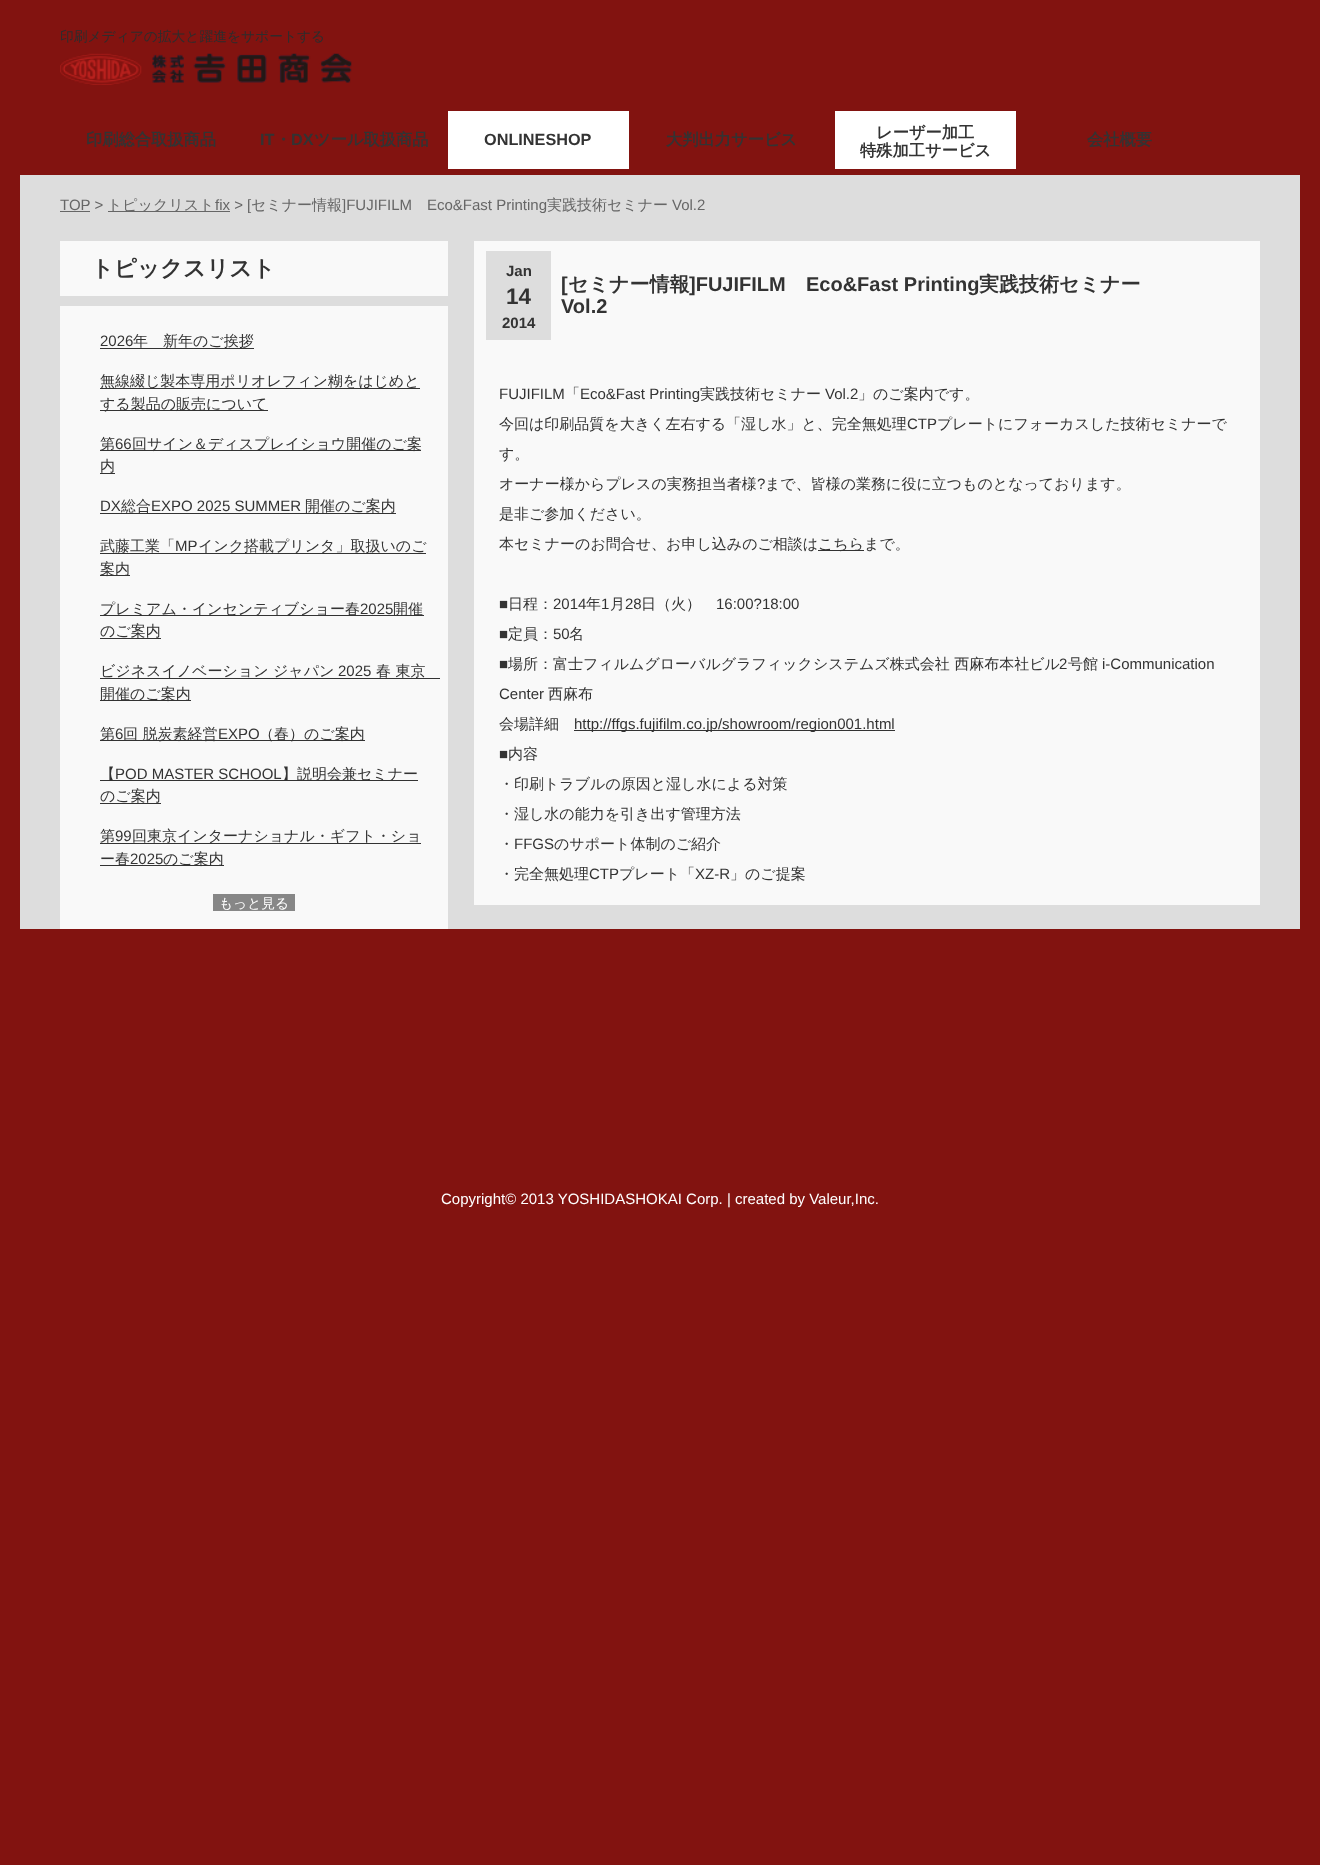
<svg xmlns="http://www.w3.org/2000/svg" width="1320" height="1865">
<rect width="100%" height="100%" fill="#821310"/>
<text x="60" y="41" style="font-family:WenQuanYi Zen Hei;font-size:13.75px;font-weight:500;fill:#2d2d2d">印刷メディアの拡大と躍進をサポートする</text>
<image x="60" y="53" width="292" height="32" href="media/1.png"/>
<text x="86" y="145" style="font-family:WenQuanYi Zen Hei;font-size:16.25px;font-weight:bold;fill:#333">印刷総合取扱商品</text>
<text x="260" y="145" style="font-family:Liberation Sans;font-size:16.25px;font-weight:bold;fill:#333">IT</text>
<text x="275" y="145" style="font-family:WenQuanYi Zen Hei;font-size:16.25px;font-weight:bold;fill:#333">・</text>
<text x="291" y="145" style="font-family:Liberation Sans;font-size:16.25px;font-weight:bold;fill:#333">DX</text>
<text x="314" y="145" style="font-family:WenQuanYi Zen Hei;font-size:16.25px;font-weight:bold;fill:#333">ツール取扱商品</text>
<rect x="448" y="111" width="181" height="58" fill="#fff"/>
<text x="484" y="145" style="font-family:Liberation Sans;font-size:16.25px;font-weight:bold;fill:#333">ONLINESHOP</text>
<text x="666" y="145" style="font-family:WenQuanYi Zen Hei;font-size:16.25px;font-weight:bold;fill:#333">大判出力サービス</text>
<rect x="835" y="111" width="181" height="58" fill="#fff"/>
<text x="876" y="138" style="font-family:WenQuanYi Zen Hei;font-size:16.25px;font-weight:bold;fill:#333">レーザー加工</text>
<text x="860" y="156" style="font-family:WenQuanYi Zen Hei;font-size:16.25px;font-weight:bold;fill:#333">特殊加工サービス</text>
<text x="1087" y="145" style="font-family:WenQuanYi Zen Hei;font-size:16.25px;font-weight:bold;fill:#333">会社概要</text>
<rect x="20" y="175" width="1280" height="754" fill="#ddd"/>
<text x="60" y="210" style="font-family:Liberation Sans;font-size:15px;fill:#666">TOP &gt;</text>
<rect x="60" y="211" width="30" height="1" fill="#666"/>
<rect x="108" y="211" width="122" height="1" fill="#666"/>
<text x="107" y="210" style="font-family:WenQuanYi Zen Hei;font-size:15px;font-weight:500;fill:#666">トピックリスト</text>
<text x="215" y="210" style="font-family:Liberation Sans;font-size:15px;fill:#666">fix &gt; [</text>
<text x="251" y="210" style="font-family:WenQuanYi Zen Hei;font-size:15px;font-weight:500;fill:#666">セミナー情報</text>
<text x="342" y="210" style="font-family:Liberation Sans;font-size:15px;fill:#666">]FUJIFILM</text>
<text x="427" y="210" style="font-family:Liberation Sans;font-size:15px;fill:#666">Eco&amp;Fast Printing</text>
<text x="547" y="210" style="font-family:WenQuanYi Zen Hei;font-size:15px;font-weight:500;fill:#666">実践技術セミナー</text>
<text x="672" y="210" style="font-family:Liberation Sans;font-size:15px;fill:#666">Vol.2</text>
<rect x="60" y="241" width="388" height="55" fill="#f9f9f9"/>
<text x="91" y="276" style="font-family:WenQuanYi Zen Hei;font-size:22.5px;font-weight:bold;fill:#333">トピックスリスト</text>
<rect x="60" y="306" width="388" height="623" fill="#f9f9f9"/>
<text x="100" y="346" style="font-family:Liberation Sans;font-size:15px;fill:#333">2026</text>
<rect x="100" y="348" width="154" height="1" fill="#333"/>
<text x="133" y="346" style="font-family:WenQuanYi Zen Hei;font-size:15px;font-weight:500;fill:#333">年　新年のご挨拶</text>
<rect x="100" y="388" width="320" height="1" fill="#333"/>
<text x="100" y="386" style="font-family:WenQuanYi Zen Hei;font-size:15px;font-weight:500;fill:#333">無線綴じ製本専用ポリオレフィン糊をはじめと</text>
<rect x="100" y="410" width="168" height="1" fill="#333"/>
<text x="100" y="409" style="font-family:WenQuanYi Zen Hei;font-size:15px;font-weight:500;fill:#333">する製品の販売について</text>
<rect x="100" y="450" width="321" height="1" fill="#333"/>
<text x="100" y="449" style="font-family:WenQuanYi Zen Hei;font-size:15px;font-weight:500;fill:#333">第</text>
<text x="115" y="449" style="font-family:Liberation Sans;font-size:15px;fill:#333">66</text>
<text x="132" y="449" style="font-family:WenQuanYi Zen Hei;font-size:15px;font-weight:500;fill:#333">回サイン＆ディスプレイショウ開催のご案</text>
<text x="100" y="471" style="font-family:WenQuanYi Zen Hei;font-size:15px;font-weight:500;fill:#333">内</text>
<rect x="100" y="473" width="15" height="1" fill="#333"/>
<text x="100" y="511" style="font-family:Liberation Sans;font-size:15px;fill:#333">DX</text>
<rect x="100" y="513" width="296" height="1" fill="#333"/>
<text x="121" y="511" style="font-family:WenQuanYi Zen Hei;font-size:15px;font-weight:500;fill:#333">総合</text>
<text x="151" y="511" style="font-family:Liberation Sans;font-size:15px;fill:#333">EXPO 2025 SUMMER</text>
<text x="305" y="511" style="font-family:WenQuanYi Zen Hei;font-size:15px;font-weight:500;fill:#333">開催のご案内</text>
<text x="100" y="551" style="font-family:WenQuanYi Zen Hei;font-size:15px;font-weight:500;fill:#333">武藤工業「</text>
<text x="175" y="551" style="font-family:Liberation Sans;font-size:15px;fill:#333">MP</text>
<rect x="100" y="553" width="326" height="1" fill="#333"/>
<text x="198" y="551" style="font-family:WenQuanYi Zen Hei;font-size:15px;font-weight:500;fill:#333">インク搭載プリンタ」取扱いのご</text>
<rect x="100" y="575" width="30" height="1" fill="#333"/>
<text x="100" y="574" style="font-family:WenQuanYi Zen Hei;font-size:15px;font-weight:500;fill:#333">案内</text>
<rect x="100" y="615" width="324" height="1" fill="#333"/>
<text x="100" y="614" style="font-family:WenQuanYi Zen Hei;font-size:15px;font-weight:500;fill:#333">プレミアム・インセンティブショー春</text>
<text x="360" y="614" style="font-family:Liberation Sans;font-size:15px;fill:#333">2025</text>
<text x="393" y="614" style="font-family:WenQuanYi Zen Hei;font-size:15px;font-weight:500;fill:#333">開催</text>
<rect x="100" y="638" width="61" height="1" fill="#333"/>
<text x="100" y="636" style="font-family:WenQuanYi Zen Hei;font-size:15px;font-weight:500;fill:#333">のご案内</text>
<text x="100" y="676" style="font-family:WenQuanYi Zen Hei;font-size:15px;font-weight:500;fill:#333">ビジネスイノベーション ジャパン</text>
<rect x="100" y="678" width="340" height="1" fill="#333"/>
<text x="338" y="676" style="font-family:Liberation Sans;font-size:15px;fill:#333">2025</text>
<text x="376" y="676" style="font-family:WenQuanYi Zen Hei;font-size:15px;font-weight:500;fill:#333">春 東京</text>
<rect x="100" y="700" width="91" height="1" fill="#333"/>
<text x="100" y="699" style="font-family:WenQuanYi Zen Hei;font-size:15px;font-weight:500;fill:#333">開催のご案内</text>
<rect x="100" y="740" width="265" height="1" fill="#333"/>
<text x="100" y="739" style="font-family:WenQuanYi Zen Hei;font-size:15px;font-weight:500;fill:#333">第</text>
<text x="115" y="739" style="font-family:Liberation Sans;font-size:15px;fill:#333">6</text>
<text x="123" y="739" style="font-family:WenQuanYi Zen Hei;font-size:15px;font-weight:500;fill:#333">回 脱炭素経営</text>
<text x="218" y="739" style="font-family:Liberation Sans;font-size:15px;fill:#333">EXPO</text>
<text x="259" y="739" style="font-family:WenQuanYi Zen Hei;font-size:15px;font-weight:500;fill:#333">（春）のご案内</text>
<rect x="100" y="780" width="318" height="1" fill="#333"/>
<text x="100" y="779" style="font-family:WenQuanYi Zen Hei;font-size:15px;font-weight:500;fill:#333">【</text>
<text x="115" y="779" style="font-family:Liberation Sans;font-size:15px;fill:#333">POD MASTER SCHOOL</text>
<text x="282" y="779" style="font-family:WenQuanYi Zen Hei;font-size:15px;font-weight:500;fill:#333">】説明会兼セミナー</text>
<rect x="100" y="803" width="61" height="1" fill="#333"/>
<text x="100" y="801" style="font-family:WenQuanYi Zen Hei;font-size:15px;font-weight:500;fill:#333">のご案内</text>
<text x="100" y="841" style="font-family:WenQuanYi Zen Hei;font-size:15px;font-weight:500;fill:#333">第</text>
<text x="115" y="841" style="font-family:Liberation Sans;font-size:15px;fill:#333">99</text>
<rect x="100" y="843" width="321" height="1" fill="#333"/>
<text x="132" y="841" style="font-family:WenQuanYi Zen Hei;font-size:15px;font-weight:500;fill:#333">回東京インターナショナル・ギフト・ショ</text>
<rect x="100" y="865" width="124" height="1" fill="#333"/>
<text x="100" y="864" style="font-family:WenQuanYi Zen Hei;font-size:15px;font-weight:500;fill:#333">ー春</text>
<text x="130" y="864" style="font-family:Liberation Sans;font-size:15px;fill:#333">2025</text>
<text x="163" y="864" style="font-family:WenQuanYi Zen Hei;font-size:15px;font-weight:500;fill:#333">のご案内</text>
<rect x="213" y="894" width="82" height="17" fill="#878787"/>
<text x="219" y="908" style="font-family:WenQuanYi Zen Hei;font-size:13.75px;font-weight:500;fill:#fff">もっと見る</text>
<rect x="474" y="241" width="786" height="664" fill="#f9f9f9"/>
<rect x="486" y="251" width="65" height="89" fill="#ddd"/>
<text x="506" y="276" style="font-family:Liberation Sans;font-size:15px;font-weight:bold;fill:#333">Jan</text>
<text x="506" y="304" style="font-family:Liberation Sans;font-size:22.5px;font-weight:bold;fill:#333">14</text>
<text x="502" y="328" style="font-family:Liberation Sans;font-size:15px;font-weight:bold;fill:#333">2014</text>
<text x="561" y="291" style="font-family:Liberation Sans;font-size:20px;font-weight:bold;fill:#333">[</text>
<text x="568" y="291" style="font-family:WenQuanYi Zen Hei;font-size:20px;font-weight:bold;fill:#333">セミナー情報</text>
<text x="689" y="291" style="font-family:Liberation Sans;font-size:20px;font-weight:bold;fill:#333">]FUJIFILM</text>
<text x="806" y="291" style="font-family:Liberation Sans;font-size:20px;font-weight:bold;fill:#333">Eco&amp;Fast Printing</text>
<text x="979" y="291" style="font-family:WenQuanYi Zen Hei;font-size:20px;font-weight:bold;fill:#333">実践技術セミナー</text>
<text x="561" y="313" style="font-family:Liberation Sans;font-size:20px;font-weight:bold;fill:#333">Vol.2</text>
<text x="499" y="399" style="font-family:Liberation Sans;font-size:15px;fill:#333">FUJIFILM</text>
<text x="565" y="399" style="font-family:WenQuanYi Zen Hei;font-size:15px;font-weight:500;fill:#333">「</text>
<text x="580" y="399" style="font-family:Liberation Sans;font-size:15px;fill:#333">Eco&amp;Fast Printing</text>
<text x="700" y="399" style="font-family:WenQuanYi Zen Hei;font-size:15px;font-weight:500;fill:#333">実践技術セミナー</text>
<text x="825" y="399" style="font-family:Liberation Sans;font-size:15px;fill:#333">Vol.2</text>
<text x="858" y="399" style="font-family:WenQuanYi Zen Hei;font-size:15px;font-weight:500;fill:#333">」のご案内です。</text>
<text x="499" y="429" style="font-family:WenQuanYi Zen Hei;font-size:15px;font-weight:500;fill:#333">今回は印刷品質を大きく左右する「湿し水」と、完全無処理</text>
<text x="907" y="429" style="font-family:Liberation Sans;font-size:15px;fill:#333">CTP</text>
<text x="937" y="429" style="font-family:WenQuanYi Zen Hei;font-size:15px;font-weight:500;fill:#333">プレートにフォーカスした技術セミナーで</text>
<text x="499" y="459" style="font-family:WenQuanYi Zen Hei;font-size:15px;font-weight:500;fill:#333">す。</text>
<text x="499" y="489" style="font-family:WenQuanYi Zen Hei;font-size:15px;font-weight:500;fill:#333">オーナー様からプレスの実務担当者様</text>
<text x="757" y="489" style="font-family:Liberation Sans;font-size:15px;fill:#333">?</text>
<text x="765" y="489" style="font-family:WenQuanYi Zen Hei;font-size:15px;font-weight:500;fill:#333">まで、皆様の業務に役に立つものとなっております。</text>
<text x="499" y="519" style="font-family:WenQuanYi Zen Hei;font-size:15px;font-weight:500;fill:#333">是非ご参加ください。</text>
<text x="499" y="549" style="font-family:WenQuanYi Zen Hei;font-size:15px;font-weight:500;fill:#333">本セミナーのお問合せ、お申し込みのご相談は</text>
<rect x="818" y="550" width="46" height="1" fill="#333"/>
<text x="818" y="549" style="font-family:WenQuanYi Zen Hei;font-size:15px;font-weight:500;fill:#333">こちらまで。</text>
<text x="499" y="609" style="font-family:Liberation Sans;font-size:15px;fill:#333">■</text>
<text x="508" y="609" style="font-family:WenQuanYi Zen Hei;font-size:15px;font-weight:500;fill:#333">日程：</text>
<text x="553" y="609" style="font-family:Liberation Sans;font-size:15px;fill:#333">2014</text>
<text x="586" y="609" style="font-family:WenQuanYi Zen Hei;font-size:15px;font-weight:500;fill:#333">年</text>
<text x="601" y="609" style="font-family:Liberation Sans;font-size:15px;fill:#333">1</text>
<text x="610" y="609" style="font-family:WenQuanYi Zen Hei;font-size:15px;font-weight:500;fill:#333">月</text>
<text x="625" y="609" style="font-family:Liberation Sans;font-size:15px;fill:#333">28</text>
<text x="641" y="609" style="font-family:WenQuanYi Zen Hei;font-size:15px;font-weight:500;fill:#333">日（火）</text>
<text x="716" y="609" style="font-family:Liberation Sans;font-size:15px;fill:#333">16:00?18:00</text>
<text x="499" y="639" style="font-family:Liberation Sans;font-size:15px;fill:#333">■</text>
<text x="508" y="639" style="font-family:WenQuanYi Zen Hei;font-size:15px;font-weight:500;fill:#333">定員：</text>
<text x="553" y="639" style="font-family:Liberation Sans;font-size:15px;fill:#333">50</text>
<text x="569" y="639" style="font-family:WenQuanYi Zen Hei;font-size:15px;font-weight:500;fill:#333">名</text>
<text x="499" y="669" style="font-family:Liberation Sans;font-size:15px;fill:#333">■</text>
<text x="508" y="669" style="font-family:WenQuanYi Zen Hei;font-size:15px;font-weight:500;fill:#333">場所：富士フィルムグローバルグラフィックシステムズ株式会社 西麻布本社ビル</text>
<text x="1059" y="669" style="font-family:Liberation Sans;font-size:15px;fill:#333">2</text>
<text x="1068" y="669" style="font-family:WenQuanYi Zen Hei;font-size:15px;font-weight:500;fill:#333">号館</text>
<text x="1102" y="669" style="font-family:Liberation Sans;font-size:15px;fill:#333">i-Communication</text>
<text x="499" y="699" style="font-family:Liberation Sans;font-size:15px;fill:#333">Center</text>
<text x="548" y="699" style="font-family:WenQuanYi Zen Hei;font-size:15px;font-weight:500;fill:#333">西麻布</text>
<text x="499" y="729" style="font-family:WenQuanYi Zen Hei;font-size:15px;font-weight:500;fill:#333">会場詳細</text>
<rect x="574" y="730" width="321" height="1" fill="#333"/>
<text x="574" y="729" style="font-family:Liberation Sans;font-size:15px;fill:#333">http://ffgs.fujifilm.co.jp/showroom/region001.html</text>
<text x="499" y="759" style="font-family:Liberation Sans;font-size:15px;fill:#333">■</text>
<text x="508" y="759" style="font-family:WenQuanYi Zen Hei;font-size:15px;font-weight:500;fill:#333">内容</text>
<text x="499" y="789" style="font-family:WenQuanYi Zen Hei;font-size:15px;font-weight:500;fill:#333">・印刷トラブルの原因と湿し水による対策</text>
<text x="499" y="819" style="font-family:WenQuanYi Zen Hei;font-size:15px;font-weight:500;fill:#333">・湿し水の能力を引き出す管理方法</text>
<text x="499" y="849" style="font-family:WenQuanYi Zen Hei;font-size:15px;font-weight:500;fill:#333">・</text>
<text x="514" y="849" style="font-family:Liberation Sans;font-size:15px;fill:#333">FFGS</text>
<text x="554" y="849" style="font-family:WenQuanYi Zen Hei;font-size:15px;font-weight:500;fill:#333">のサポート体制のご紹介</text>
<text x="499" y="879" style="font-family:WenQuanYi Zen Hei;font-size:15px;font-weight:500;fill:#333">・完全無処理</text>
<text x="589" y="879" style="font-family:Liberation Sans;font-size:15px;fill:#333">CTP</text>
<text x="619" y="879" style="font-family:WenQuanYi Zen Hei;font-size:15px;font-weight:500;fill:#333">プレート「</text>
<text x="695" y="879" style="font-family:Liberation Sans;font-size:15px;fill:#333">XZ-R</text>
<text x="730" y="879" style="font-family:WenQuanYi Zen Hei;font-size:15px;font-weight:500;fill:#333">」のご提案</text>
<text x="441" y="1204" style="font-family:Liberation Sans;font-size:15px;fill:#fff">Copyright© 2013 YOSHIDASHOKAI Corp. | created by Valeur,Inc.</text>
</svg>
